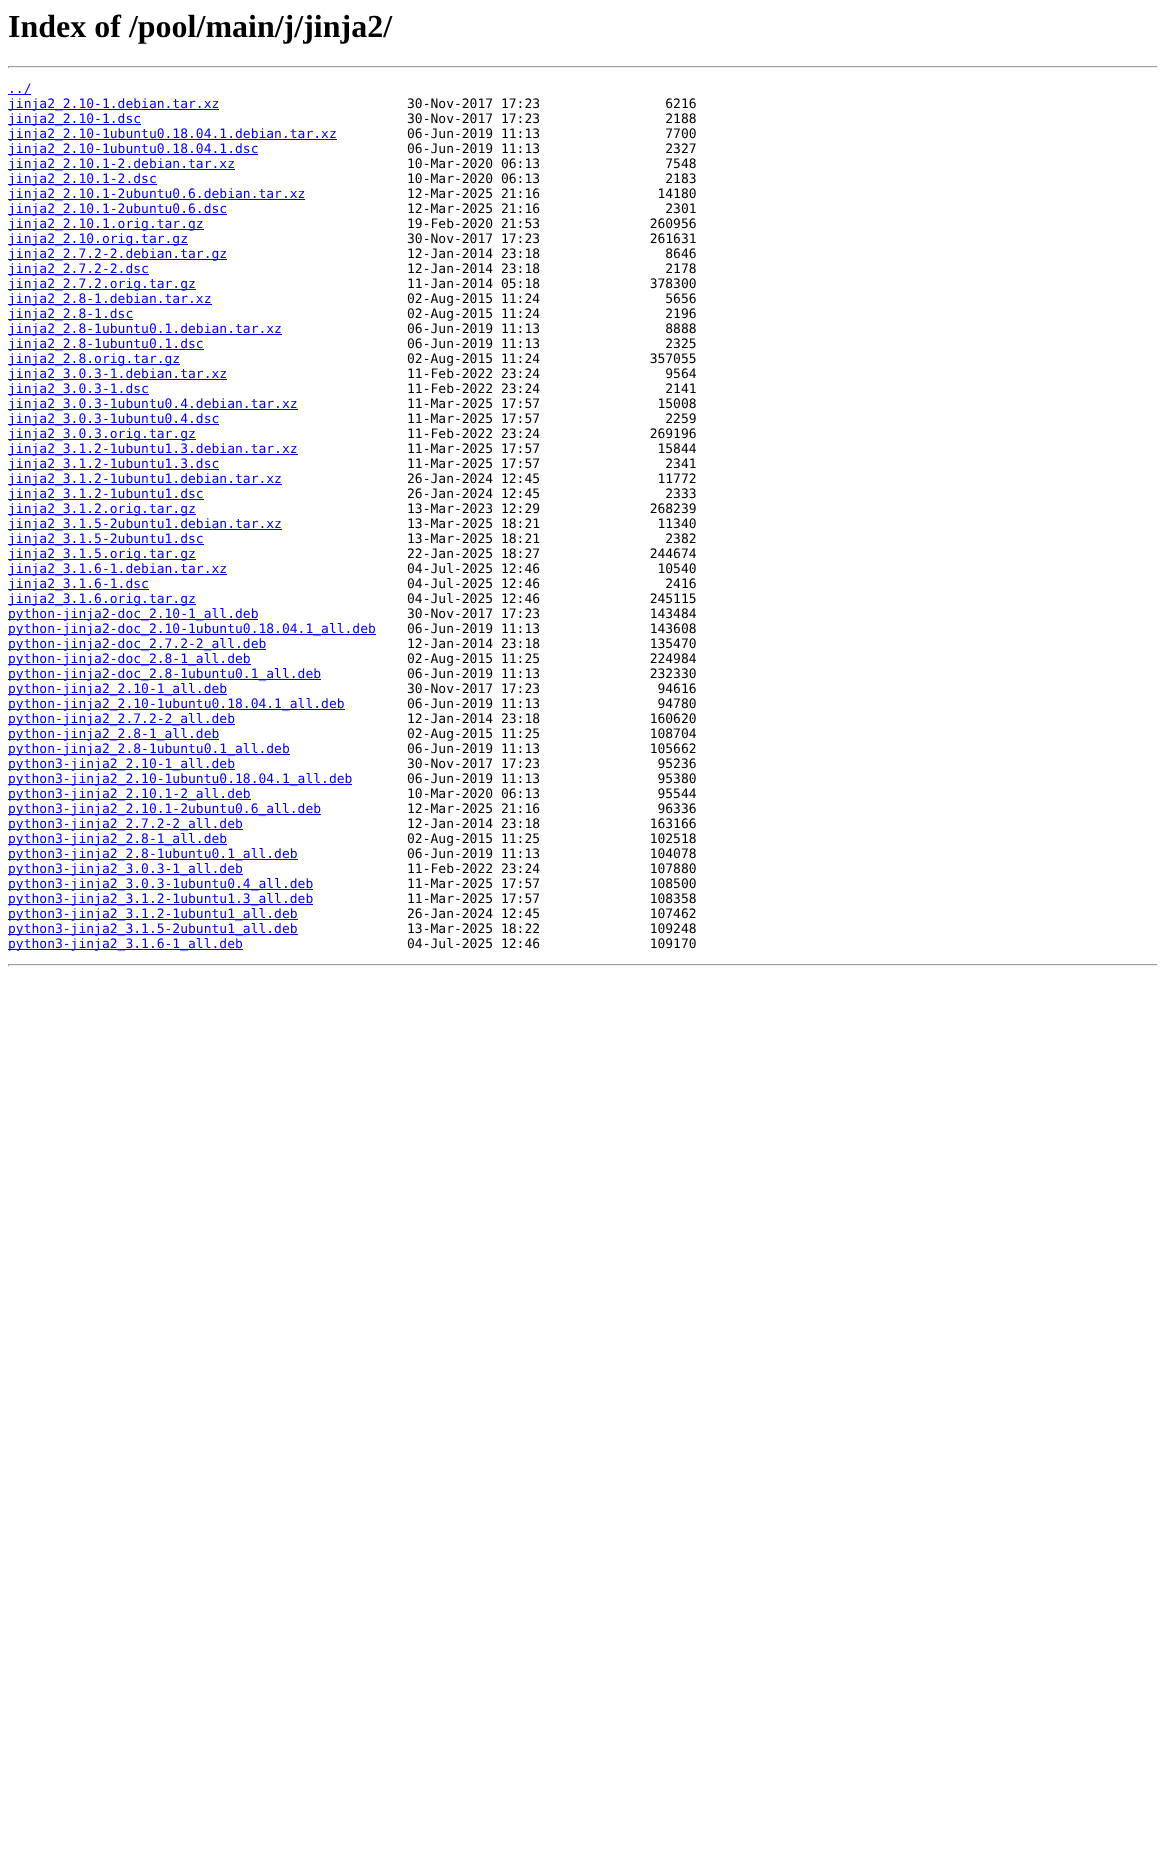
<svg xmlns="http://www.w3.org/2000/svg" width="1166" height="1861">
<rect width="100%" height="100%" fill="#fff"/>
<text x="8" y="37" style="font-family:Liberation Serif;font-size:32px;font-weight:bold;fill:#000">Index of /pool/main/j/jinja2/</text>
<rect x="8" y="66" width="1150" height="1" fill="#9f9f9f"/>
<rect x="1157" y="66" width="1" height="2" fill="#eee"/>
<rect x="8" y="67" width="1150" height="1" fill="#eee"/>
<rect x="8" y="66" width="1" height="2" fill="#9f9f9f"/>
<rect x="8" y="94" width="23" height="1" fill="#00e"/>
<text x="8" y="93" style="font-family:DejaVu Sans Mono;font-size:13px;fill:#00e">../</text>
<rect x="8" y="109" width="211" height="1" fill="#00e"/>
<text x="8" y="108" style="font-family:DejaVu Sans Mono;font-size:13px;fill:#00e">jinja2_2.10-1.debian.tar.xz</text>
<text x="407" y="108" style="font-family:DejaVu Sans Mono;font-size:13px;fill:#000" xml:space="preserve">30-Nov-2017 17:23                6216</text>
<rect x="8" y="124" width="133" height="1" fill="#00e"/>
<text x="8" y="123" style="font-family:DejaVu Sans Mono;font-size:13px;fill:#00e">jinja2_2.10-1.dsc</text>
<text x="407" y="123" style="font-family:DejaVu Sans Mono;font-size:13px;fill:#000" xml:space="preserve">30-Nov-2017 17:23                2188</text>
<rect x="8" y="139" width="329" height="1" fill="#00e"/>
<text x="8" y="138" style="font-family:DejaVu Sans Mono;font-size:13px;fill:#00e">jinja2_2.10-1ubuntu0.18.04.1.debian.tar.xz</text>
<text x="407" y="138" style="font-family:DejaVu Sans Mono;font-size:13px;fill:#000" xml:space="preserve">06-Jun-2019 11:13                7700</text>
<rect x="8" y="154" width="250" height="1" fill="#00e"/>
<text x="8" y="153" style="font-family:DejaVu Sans Mono;font-size:13px;fill:#00e">jinja2_2.10-1ubuntu0.18.04.1.dsc</text>
<text x="407" y="153" style="font-family:DejaVu Sans Mono;font-size:13px;fill:#000" xml:space="preserve">06-Jun-2019 11:13                2327</text>
<rect x="8" y="169" width="227" height="1" fill="#00e"/>
<text x="8" y="168" style="font-family:DejaVu Sans Mono;font-size:13px;fill:#00e">jinja2_2.10.1-2.debian.tar.xz</text>
<text x="407" y="168" style="font-family:DejaVu Sans Mono;font-size:13px;fill:#000" xml:space="preserve">10-Mar-2020 06:13                7548</text>
<rect x="8" y="184" width="149" height="1" fill="#00e"/>
<text x="8" y="183" style="font-family:DejaVu Sans Mono;font-size:13px;fill:#00e">jinja2_2.10.1-2.dsc</text>
<text x="407" y="183" style="font-family:DejaVu Sans Mono;font-size:13px;fill:#000" xml:space="preserve">10-Mar-2020 06:13                2183</text>
<rect x="8" y="199" width="297" height="1" fill="#00e"/>
<text x="8" y="198" style="font-family:DejaVu Sans Mono;font-size:13px;fill:#00e">jinja2_2.10.1-2ubuntu0.6.debian.tar.xz</text>
<text x="407" y="198" style="font-family:DejaVu Sans Mono;font-size:13px;fill:#000" xml:space="preserve">12-Mar-2025 21:16               14180</text>
<rect x="8" y="214" width="219" height="1" fill="#00e"/>
<text x="8" y="213" style="font-family:DejaVu Sans Mono;font-size:13px;fill:#00e">jinja2_2.10.1-2ubuntu0.6.dsc</text>
<text x="407" y="213" style="font-family:DejaVu Sans Mono;font-size:13px;fill:#000" xml:space="preserve">12-Mar-2025 21:16                2301</text>
<rect x="8" y="229" width="196" height="1" fill="#00e"/>
<text x="8" y="228" style="font-family:DejaVu Sans Mono;font-size:13px;fill:#00e">jinja2_2.10.1.orig.tar.gz</text>
<text x="407" y="228" style="font-family:DejaVu Sans Mono;font-size:13px;fill:#000" xml:space="preserve">19-Feb-2020 21:53              260956</text>
<rect x="8" y="244" width="180" height="1" fill="#00e"/>
<text x="8" y="243" style="font-family:DejaVu Sans Mono;font-size:13px;fill:#00e">jinja2_2.10.orig.tar.gz</text>
<text x="407" y="243" style="font-family:DejaVu Sans Mono;font-size:13px;fill:#000" xml:space="preserve">30-Nov-2017 17:23              261631</text>
<rect x="8" y="259" width="219" height="1" fill="#00e"/>
<text x="8" y="258" style="font-family:DejaVu Sans Mono;font-size:13px;fill:#00e">jinja2_2.7.2-2.debian.tar.gz</text>
<text x="407" y="258" style="font-family:DejaVu Sans Mono;font-size:13px;fill:#000" xml:space="preserve">12-Jan-2014 23:18                8646</text>
<rect x="8" y="274" width="141" height="1" fill="#00e"/>
<text x="8" y="273" style="font-family:DejaVu Sans Mono;font-size:13px;fill:#00e">jinja2_2.7.2-2.dsc</text>
<text x="407" y="273" style="font-family:DejaVu Sans Mono;font-size:13px;fill:#000" xml:space="preserve">12-Jan-2014 23:18                2178</text>
<rect x="8" y="289" width="188" height="1" fill="#00e"/>
<text x="8" y="288" style="font-family:DejaVu Sans Mono;font-size:13px;fill:#00e">jinja2_2.7.2.orig.tar.gz</text>
<text x="407" y="288" style="font-family:DejaVu Sans Mono;font-size:13px;fill:#000" xml:space="preserve">11-Jan-2014 05:18              378300</text>
<rect x="8" y="304" width="204" height="1" fill="#00e"/>
<text x="8" y="303" style="font-family:DejaVu Sans Mono;font-size:13px;fill:#00e">jinja2_2.8-1.debian.tar.xz</text>
<text x="407" y="303" style="font-family:DejaVu Sans Mono;font-size:13px;fill:#000" xml:space="preserve">02-Aug-2015 11:24                5656</text>
<rect x="8" y="319" width="125" height="1" fill="#00e"/>
<text x="8" y="318" style="font-family:DejaVu Sans Mono;font-size:13px;fill:#00e">jinja2_2.8-1.dsc</text>
<text x="407" y="318" style="font-family:DejaVu Sans Mono;font-size:13px;fill:#000" xml:space="preserve">02-Aug-2015 11:24                2196</text>
<rect x="8" y="334" width="274" height="1" fill="#00e"/>
<text x="8" y="333" style="font-family:DejaVu Sans Mono;font-size:13px;fill:#00e">jinja2_2.8-1ubuntu0.1.debian.tar.xz</text>
<text x="407" y="333" style="font-family:DejaVu Sans Mono;font-size:13px;fill:#000" xml:space="preserve">06-Jun-2019 11:13                8888</text>
<rect x="8" y="349" width="196" height="1" fill="#00e"/>
<text x="8" y="348" style="font-family:DejaVu Sans Mono;font-size:13px;fill:#00e">jinja2_2.8-1ubuntu0.1.dsc</text>
<text x="407" y="348" style="font-family:DejaVu Sans Mono;font-size:13px;fill:#000" xml:space="preserve">06-Jun-2019 11:13                2325</text>
<rect x="8" y="364" width="172" height="1" fill="#00e"/>
<text x="8" y="363" style="font-family:DejaVu Sans Mono;font-size:13px;fill:#00e">jinja2_2.8.orig.tar.gz</text>
<text x="407" y="363" style="font-family:DejaVu Sans Mono;font-size:13px;fill:#000" xml:space="preserve">02-Aug-2015 11:24              357055</text>
<rect x="8" y="379" width="219" height="1" fill="#00e"/>
<text x="8" y="378" style="font-family:DejaVu Sans Mono;font-size:13px;fill:#00e">jinja2_3.0.3-1.debian.tar.xz</text>
<text x="407" y="378" style="font-family:DejaVu Sans Mono;font-size:13px;fill:#000" xml:space="preserve">11-Feb-2022 23:24                9564</text>
<rect x="8" y="394" width="141" height="1" fill="#00e"/>
<text x="8" y="393" style="font-family:DejaVu Sans Mono;font-size:13px;fill:#00e">jinja2_3.0.3-1.dsc</text>
<text x="407" y="393" style="font-family:DejaVu Sans Mono;font-size:13px;fill:#000" xml:space="preserve">11-Feb-2022 23:24                2141</text>
<rect x="8" y="409" width="290" height="1" fill="#00e"/>
<text x="8" y="408" style="font-family:DejaVu Sans Mono;font-size:13px;fill:#00e">jinja2_3.0.3-1ubuntu0.4.debian.tar.xz</text>
<text x="407" y="408" style="font-family:DejaVu Sans Mono;font-size:13px;fill:#000" xml:space="preserve">11-Mar-2025 17:57               15008</text>
<rect x="8" y="424" width="211" height="1" fill="#00e"/>
<text x="8" y="423" style="font-family:DejaVu Sans Mono;font-size:13px;fill:#00e">jinja2_3.0.3-1ubuntu0.4.dsc</text>
<text x="407" y="423" style="font-family:DejaVu Sans Mono;font-size:13px;fill:#000" xml:space="preserve">11-Mar-2025 17:57                2259</text>
<rect x="8" y="439" width="188" height="1" fill="#00e"/>
<text x="8" y="438" style="font-family:DejaVu Sans Mono;font-size:13px;fill:#00e">jinja2_3.0.3.orig.tar.gz</text>
<text x="407" y="438" style="font-family:DejaVu Sans Mono;font-size:13px;fill:#000" xml:space="preserve">11-Feb-2022 23:24              269196</text>
<rect x="8" y="454" width="290" height="1" fill="#00e"/>
<text x="8" y="453" style="font-family:DejaVu Sans Mono;font-size:13px;fill:#00e">jinja2_3.1.2-1ubuntu1.3.debian.tar.xz</text>
<text x="407" y="453" style="font-family:DejaVu Sans Mono;font-size:13px;fill:#000" xml:space="preserve">11-Mar-2025 17:57               15844</text>
<rect x="8" y="469" width="211" height="1" fill="#00e"/>
<text x="8" y="468" style="font-family:DejaVu Sans Mono;font-size:13px;fill:#00e">jinja2_3.1.2-1ubuntu1.3.dsc</text>
<text x="407" y="468" style="font-family:DejaVu Sans Mono;font-size:13px;fill:#000" xml:space="preserve">11-Mar-2025 17:57                2341</text>
<rect x="8" y="484" width="274" height="1" fill="#00e"/>
<text x="8" y="483" style="font-family:DejaVu Sans Mono;font-size:13px;fill:#00e">jinja2_3.1.2-1ubuntu1.debian.tar.xz</text>
<text x="407" y="483" style="font-family:DejaVu Sans Mono;font-size:13px;fill:#000" xml:space="preserve">26-Jan-2024 12:45               11772</text>
<rect x="8" y="499" width="196" height="1" fill="#00e"/>
<text x="8" y="498" style="font-family:DejaVu Sans Mono;font-size:13px;fill:#00e">jinja2_3.1.2-1ubuntu1.dsc</text>
<text x="407" y="498" style="font-family:DejaVu Sans Mono;font-size:13px;fill:#000" xml:space="preserve">26-Jan-2024 12:45                2333</text>
<rect x="8" y="514" width="188" height="1" fill="#00e"/>
<text x="8" y="513" style="font-family:DejaVu Sans Mono;font-size:13px;fill:#00e">jinja2_3.1.2.orig.tar.gz</text>
<text x="407" y="513" style="font-family:DejaVu Sans Mono;font-size:13px;fill:#000" xml:space="preserve">13-Mar-2023 12:29              268239</text>
<rect x="8" y="529" width="274" height="1" fill="#00e"/>
<text x="8" y="528" style="font-family:DejaVu Sans Mono;font-size:13px;fill:#00e">jinja2_3.1.5-2ubuntu1.debian.tar.xz</text>
<text x="407" y="528" style="font-family:DejaVu Sans Mono;font-size:13px;fill:#000" xml:space="preserve">13-Mar-2025 18:21               11340</text>
<rect x="8" y="544" width="196" height="1" fill="#00e"/>
<text x="8" y="543" style="font-family:DejaVu Sans Mono;font-size:13px;fill:#00e">jinja2_3.1.5-2ubuntu1.dsc</text>
<text x="407" y="543" style="font-family:DejaVu Sans Mono;font-size:13px;fill:#000" xml:space="preserve">13-Mar-2025 18:21                2382</text>
<rect x="8" y="559" width="188" height="1" fill="#00e"/>
<text x="8" y="558" style="font-family:DejaVu Sans Mono;font-size:13px;fill:#00e">jinja2_3.1.5.orig.tar.gz</text>
<text x="407" y="558" style="font-family:DejaVu Sans Mono;font-size:13px;fill:#000" xml:space="preserve">22-Jan-2025 18:27              244674</text>
<rect x="8" y="574" width="219" height="1" fill="#00e"/>
<text x="8" y="573" style="font-family:DejaVu Sans Mono;font-size:13px;fill:#00e">jinja2_3.1.6-1.debian.tar.xz</text>
<text x="407" y="573" style="font-family:DejaVu Sans Mono;font-size:13px;fill:#000" xml:space="preserve">04-Jul-2025 12:46               10540</text>
<rect x="8" y="589" width="141" height="1" fill="#00e"/>
<text x="8" y="588" style="font-family:DejaVu Sans Mono;font-size:13px;fill:#00e">jinja2_3.1.6-1.dsc</text>
<text x="407" y="588" style="font-family:DejaVu Sans Mono;font-size:13px;fill:#000" xml:space="preserve">04-Jul-2025 12:46                2416</text>
<rect x="8" y="604" width="188" height="1" fill="#00e"/>
<text x="8" y="603" style="font-family:DejaVu Sans Mono;font-size:13px;fill:#00e">jinja2_3.1.6.orig.tar.gz</text>
<text x="407" y="603" style="font-family:DejaVu Sans Mono;font-size:13px;fill:#000" xml:space="preserve">04-Jul-2025 12:46              245115</text>
<rect x="8" y="619" width="250" height="1" fill="#00e"/>
<text x="8" y="618" style="font-family:DejaVu Sans Mono;font-size:13px;fill:#00e">python-jinja2-doc_2.10-1_all.deb</text>
<text x="407" y="618" style="font-family:DejaVu Sans Mono;font-size:13px;fill:#000" xml:space="preserve">30-Nov-2017 17:23              143484</text>
<rect x="8" y="634" width="368" height="1" fill="#00e"/>
<text x="8" y="633" style="font-family:DejaVu Sans Mono;font-size:13px;fill:#00e">python-jinja2-doc_2.10-1ubuntu0.18.04.1_all.deb</text>
<text x="407" y="633" style="font-family:DejaVu Sans Mono;font-size:13px;fill:#000" xml:space="preserve">06-Jun-2019 11:13              143608</text>
<rect x="8" y="649" width="258" height="1" fill="#00e"/>
<text x="8" y="648" style="font-family:DejaVu Sans Mono;font-size:13px;fill:#00e">python-jinja2-doc_2.7.2-2_all.deb</text>
<text x="407" y="648" style="font-family:DejaVu Sans Mono;font-size:13px;fill:#000" xml:space="preserve">12-Jan-2014 23:18              135470</text>
<rect x="8" y="664" width="243" height="1" fill="#00e"/>
<text x="8" y="663" style="font-family:DejaVu Sans Mono;font-size:13px;fill:#00e">python-jinja2-doc_2.8-1_all.deb</text>
<text x="407" y="663" style="font-family:DejaVu Sans Mono;font-size:13px;fill:#000" xml:space="preserve">02-Aug-2015 11:25              224984</text>
<rect x="8" y="679" width="313" height="1" fill="#00e"/>
<text x="8" y="678" style="font-family:DejaVu Sans Mono;font-size:13px;fill:#00e">python-jinja2-doc_2.8-1ubuntu0.1_all.deb</text>
<text x="407" y="678" style="font-family:DejaVu Sans Mono;font-size:13px;fill:#000" xml:space="preserve">06-Jun-2019 11:13              232330</text>
<rect x="8" y="694" width="219" height="1" fill="#00e"/>
<text x="8" y="693" style="font-family:DejaVu Sans Mono;font-size:13px;fill:#00e">python-jinja2_2.10-1_all.deb</text>
<text x="407" y="693" style="font-family:DejaVu Sans Mono;font-size:13px;fill:#000" xml:space="preserve">30-Nov-2017 17:23               94616</text>
<rect x="8" y="709" width="337" height="1" fill="#00e"/>
<text x="8" y="708" style="font-family:DejaVu Sans Mono;font-size:13px;fill:#00e">python-jinja2_2.10-1ubuntu0.18.04.1_all.deb</text>
<text x="407" y="708" style="font-family:DejaVu Sans Mono;font-size:13px;fill:#000" xml:space="preserve">06-Jun-2019 11:13               94780</text>
<rect x="8" y="724" width="227" height="1" fill="#00e"/>
<text x="8" y="723" style="font-family:DejaVu Sans Mono;font-size:13px;fill:#00e">python-jinja2_2.7.2-2_all.deb</text>
<text x="407" y="723" style="font-family:DejaVu Sans Mono;font-size:13px;fill:#000" xml:space="preserve">12-Jan-2014 23:18              160620</text>
<rect x="8" y="739" width="211" height="1" fill="#00e"/>
<text x="8" y="738" style="font-family:DejaVu Sans Mono;font-size:13px;fill:#00e">python-jinja2_2.8-1_all.deb</text>
<text x="407" y="738" style="font-family:DejaVu Sans Mono;font-size:13px;fill:#000" xml:space="preserve">02-Aug-2015 11:25              108704</text>
<rect x="8" y="754" width="282" height="1" fill="#00e"/>
<text x="8" y="753" style="font-family:DejaVu Sans Mono;font-size:13px;fill:#00e">python-jinja2_2.8-1ubuntu0.1_all.deb</text>
<text x="407" y="753" style="font-family:DejaVu Sans Mono;font-size:13px;fill:#000" xml:space="preserve">06-Jun-2019 11:13              105662</text>
<rect x="8" y="769" width="227" height="1" fill="#00e"/>
<text x="8" y="768" style="font-family:DejaVu Sans Mono;font-size:13px;fill:#00e">python3-jinja2_2.10-1_all.deb</text>
<text x="407" y="768" style="font-family:DejaVu Sans Mono;font-size:13px;fill:#000" xml:space="preserve">30-Nov-2017 17:23               95236</text>
<rect x="8" y="784" width="344" height="1" fill="#00e"/>
<text x="8" y="783" style="font-family:DejaVu Sans Mono;font-size:13px;fill:#00e">python3-jinja2_2.10-1ubuntu0.18.04.1_all.deb</text>
<text x="407" y="783" style="font-family:DejaVu Sans Mono;font-size:13px;fill:#000" xml:space="preserve">06-Jun-2019 11:13               95380</text>
<rect x="8" y="799" width="243" height="1" fill="#00e"/>
<text x="8" y="798" style="font-family:DejaVu Sans Mono;font-size:13px;fill:#00e">python3-jinja2_2.10.1-2_all.deb</text>
<text x="407" y="798" style="font-family:DejaVu Sans Mono;font-size:13px;fill:#000" xml:space="preserve">10-Mar-2020 06:13               95544</text>
<rect x="8" y="814" width="313" height="1" fill="#00e"/>
<text x="8" y="813" style="font-family:DejaVu Sans Mono;font-size:13px;fill:#00e">python3-jinja2_2.10.1-2ubuntu0.6_all.deb</text>
<text x="407" y="813" style="font-family:DejaVu Sans Mono;font-size:13px;fill:#000" xml:space="preserve">12-Mar-2025 21:16               96336</text>
<rect x="8" y="829" width="235" height="1" fill="#00e"/>
<text x="8" y="828" style="font-family:DejaVu Sans Mono;font-size:13px;fill:#00e">python3-jinja2_2.7.2-2_all.deb</text>
<text x="407" y="828" style="font-family:DejaVu Sans Mono;font-size:13px;fill:#000" xml:space="preserve">12-Jan-2014 23:18              163166</text>
<rect x="8" y="844" width="219" height="1" fill="#00e"/>
<text x="8" y="843" style="font-family:DejaVu Sans Mono;font-size:13px;fill:#00e">python3-jinja2_2.8-1_all.deb</text>
<text x="407" y="843" style="font-family:DejaVu Sans Mono;font-size:13px;fill:#000" xml:space="preserve">02-Aug-2015 11:25              102518</text>
<rect x="8" y="859" width="290" height="1" fill="#00e"/>
<text x="8" y="858" style="font-family:DejaVu Sans Mono;font-size:13px;fill:#00e">python3-jinja2_2.8-1ubuntu0.1_all.deb</text>
<text x="407" y="858" style="font-family:DejaVu Sans Mono;font-size:13px;fill:#000" xml:space="preserve">06-Jun-2019 11:13              104078</text>
<rect x="8" y="874" width="235" height="1" fill="#00e"/>
<text x="8" y="873" style="font-family:DejaVu Sans Mono;font-size:13px;fill:#00e">python3-jinja2_3.0.3-1_all.deb</text>
<text x="407" y="873" style="font-family:DejaVu Sans Mono;font-size:13px;fill:#000" xml:space="preserve">11-Feb-2022 23:24              107880</text>
<rect x="8" y="889" width="305" height="1" fill="#00e"/>
<text x="8" y="888" style="font-family:DejaVu Sans Mono;font-size:13px;fill:#00e">python3-jinja2_3.0.3-1ubuntu0.4_all.deb</text>
<text x="407" y="888" style="font-family:DejaVu Sans Mono;font-size:13px;fill:#000" xml:space="preserve">11-Mar-2025 17:57              108500</text>
<rect x="8" y="904" width="305" height="1" fill="#00e"/>
<text x="8" y="903" style="font-family:DejaVu Sans Mono;font-size:13px;fill:#00e">python3-jinja2_3.1.2-1ubuntu1.3_all.deb</text>
<text x="407" y="903" style="font-family:DejaVu Sans Mono;font-size:13px;fill:#000" xml:space="preserve">11-Mar-2025 17:57              108358</text>
<rect x="8" y="919" width="290" height="1" fill="#00e"/>
<text x="8" y="918" style="font-family:DejaVu Sans Mono;font-size:13px;fill:#00e">python3-jinja2_3.1.2-1ubuntu1_all.deb</text>
<text x="407" y="918" style="font-family:DejaVu Sans Mono;font-size:13px;fill:#000" xml:space="preserve">26-Jan-2024 12:45              107462</text>
<rect x="8" y="934" width="290" height="1" fill="#00e"/>
<text x="8" y="933" style="font-family:DejaVu Sans Mono;font-size:13px;fill:#00e">python3-jinja2_3.1.5-2ubuntu1_all.deb</text>
<text x="407" y="933" style="font-family:DejaVu Sans Mono;font-size:13px;fill:#000" xml:space="preserve">13-Mar-2025 18:22              109248</text>
<rect x="8" y="949" width="235" height="1" fill="#00e"/>
<text x="8" y="948" style="font-family:DejaVu Sans Mono;font-size:13px;fill:#00e">python3-jinja2_3.1.6-1_all.deb</text>
<text x="407" y="948" style="font-family:DejaVu Sans Mono;font-size:13px;fill:#000" xml:space="preserve">04-Jul-2025 12:46              109170</text>
<rect x="8" y="964" width="1150" height="1" fill="#9f9f9f"/>
<rect x="1157" y="964" width="1" height="2" fill="#eee"/>
<rect x="8" y="965" width="1150" height="1" fill="#eee"/>
<rect x="8" y="964" width="1" height="2" fill="#9f9f9f"/>
</svg>
